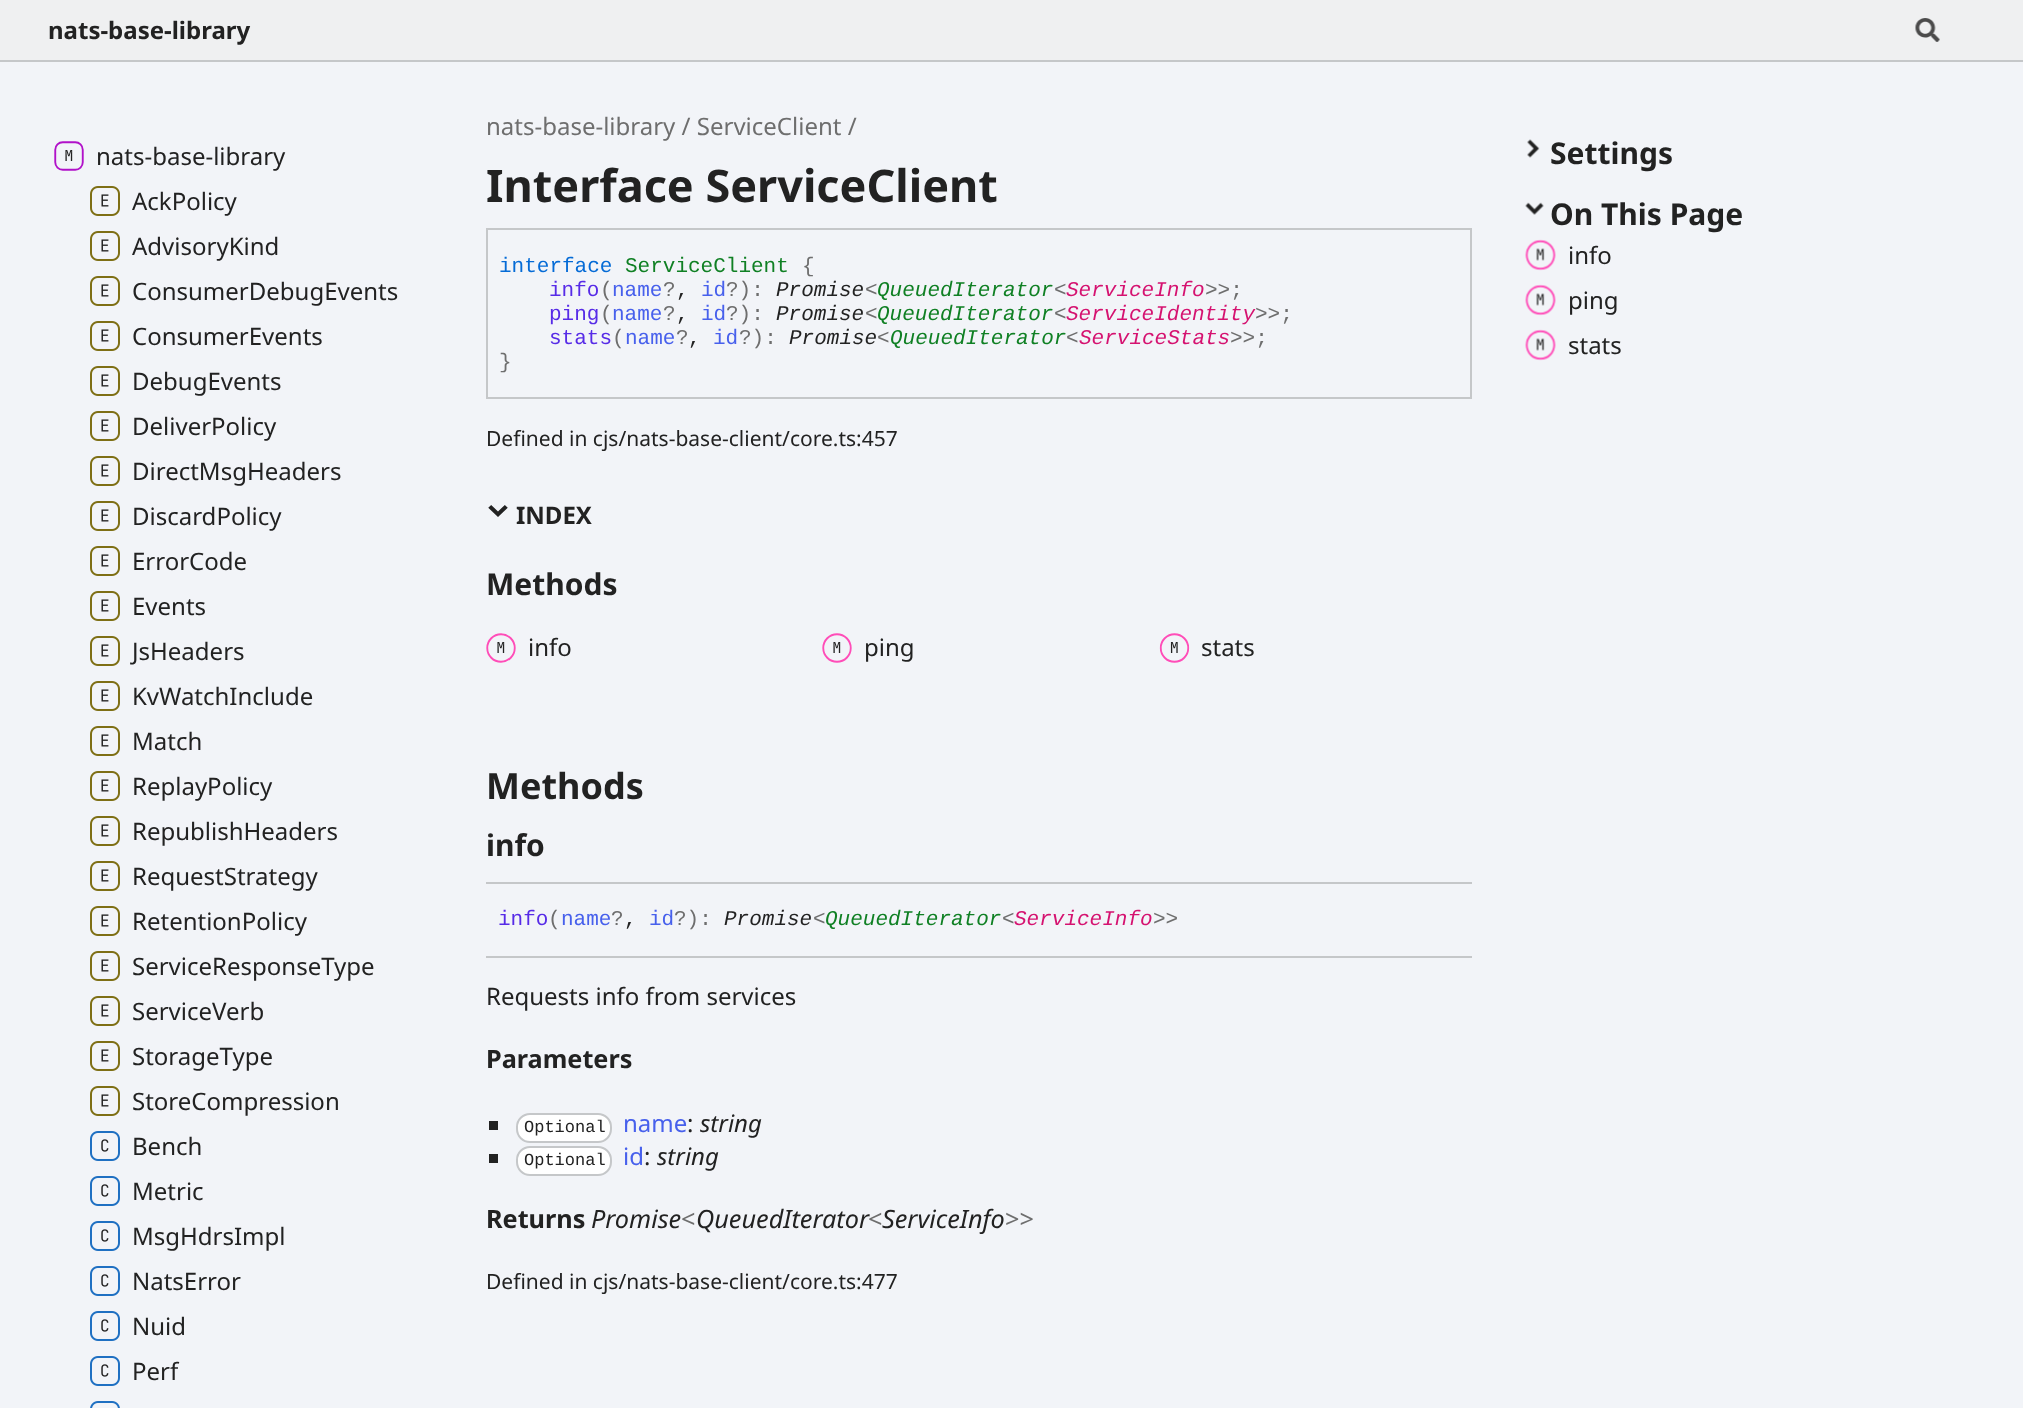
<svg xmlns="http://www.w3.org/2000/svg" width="2023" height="1408">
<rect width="100%" height="100%" fill="#f2f4f8"/>
<rect width="2023" height="60" fill="#eff0f1"/>
<rect y="60" width="2023" height="2" fill="#c5c7c9"/>
<text x="48" y="39" style="font-family:Noto Sans;font-size:24px;font-weight:bold;fill:#222">nats-base-library</text>
<image x="1915" y="18" width="25" height="24" href="media/1.png"/>
<text x="486" y="135" style="font-family:Noto Sans;font-size:24px;fill:#6e6e6e">nats-base-library / ServiceClient /</text>
<text x="486" y="202" style="font-family:Noto Sans;font-size:45px;font-weight:bold;fill:#222">Interface ServiceClient</text>
<rect x="487" y="229" width="984" height="169" fill="none" stroke="#c5c7c9" stroke-width="2"/>
<text x="499" y="272" style="font-family:Liberation Mono;font-size:21px;fill:#056bd6">interface</text>
<text x="625" y="272" style="font-family:Liberation Mono;font-size:21px;fill:#108024">ServiceClient</text>
<text x="802" y="272" style="font-family:Liberation Mono;font-size:21px;fill:#6e6e6e">{</text>
<text x="549" y="296" style="font-family:Liberation Mono;font-size:21px;fill:#572be7">info</text>
<text x="600" y="296" style="font-family:Liberation Mono;font-size:21px;fill:#6e6e6e">(</text>
<text x="612" y="296" style="font-family:Liberation Mono;font-size:21px;fill:#4760ec">name</text>
<text x="663" y="296" style="font-family:Liberation Mono;font-size:21px;fill:#6e6e6e">?</text>
<text x="676" y="296" style="font-family:Liberation Mono;font-size:21px;fill:#222">,</text>
<text x="701" y="296" style="font-family:Liberation Mono;font-size:21px;fill:#4760ec">id</text>
<text x="726" y="296" style="font-family:Liberation Mono;font-size:21px;fill:#6e6e6e">?):</text>
<text x="776" y="296" style="font-family:Liberation Mono;font-size:21px;font-style:italic;fill:#222">Promise</text>
<text x="865" y="296" style="font-family:Liberation Mono;font-size:21px;fill:#6e6e6e">&lt;</text>
<text x="877" y="296" style="font-family:Liberation Mono;font-size:21px;font-style:italic;fill:#108024">QueuedIterator</text>
<text x="1054" y="296" style="font-family:Liberation Mono;font-size:21px;fill:#6e6e6e">&lt;</text>
<text x="1066" y="296" style="font-family:Liberation Mono;font-size:21px;font-style:italic;fill:#d51270">ServiceInfo</text>
<text x="1205" y="296" style="font-family:Liberation Mono;font-size:21px;fill:#6e6e6e">&gt;&gt;;</text>
<text x="549" y="320" style="font-family:Liberation Mono;font-size:21px;fill:#572be7">ping</text>
<text x="600" y="320" style="font-family:Liberation Mono;font-size:21px;fill:#6e6e6e">(</text>
<text x="612" y="320" style="font-family:Liberation Mono;font-size:21px;fill:#4760ec">name</text>
<text x="663" y="320" style="font-family:Liberation Mono;font-size:21px;fill:#6e6e6e">?</text>
<text x="676" y="320" style="font-family:Liberation Mono;font-size:21px;fill:#222">,</text>
<text x="701" y="320" style="font-family:Liberation Mono;font-size:21px;fill:#4760ec">id</text>
<text x="726" y="320" style="font-family:Liberation Mono;font-size:21px;fill:#6e6e6e">?):</text>
<text x="776" y="320" style="font-family:Liberation Mono;font-size:21px;font-style:italic;fill:#222">Promise</text>
<text x="865" y="320" style="font-family:Liberation Mono;font-size:21px;fill:#6e6e6e">&lt;</text>
<text x="877" y="320" style="font-family:Liberation Mono;font-size:21px;font-style:italic;fill:#108024">QueuedIterator</text>
<text x="1054" y="320" style="font-family:Liberation Mono;font-size:21px;fill:#6e6e6e">&lt;</text>
<text x="1066" y="320" style="font-family:Liberation Mono;font-size:21px;font-style:italic;fill:#d51270">ServiceIdentity</text>
<text x="1255" y="320" style="font-family:Liberation Mono;font-size:21px;fill:#6e6e6e">&gt;&gt;;</text>
<text x="549" y="344" style="font-family:Liberation Mono;font-size:21px;fill:#572be7">stats</text>
<text x="612" y="344" style="font-family:Liberation Mono;font-size:21px;fill:#6e6e6e">(</text>
<text x="625" y="344" style="font-family:Liberation Mono;font-size:21px;fill:#4760ec">name</text>
<text x="676" y="344" style="font-family:Liberation Mono;font-size:21px;fill:#6e6e6e">?</text>
<text x="688" y="344" style="font-family:Liberation Mono;font-size:21px;fill:#222">,</text>
<text x="713" y="344" style="font-family:Liberation Mono;font-size:21px;fill:#4760ec">id</text>
<text x="739" y="344" style="font-family:Liberation Mono;font-size:21px;fill:#6e6e6e">?):</text>
<text x="789" y="344" style="font-family:Liberation Mono;font-size:21px;font-style:italic;fill:#222">Promise</text>
<text x="877" y="344" style="font-family:Liberation Mono;font-size:21px;fill:#6e6e6e">&lt;</text>
<text x="890" y="344" style="font-family:Liberation Mono;font-size:21px;font-style:italic;fill:#108024">QueuedIterator</text>
<text x="1066" y="344" style="font-family:Liberation Mono;font-size:21px;fill:#6e6e6e">&lt;</text>
<text x="1079" y="344" style="font-family:Liberation Mono;font-size:21px;font-style:italic;fill:#d51270">ServiceStats</text>
<text x="1230" y="344" style="font-family:Liberation Mono;font-size:21px;fill:#6e6e6e">&gt;&gt;;</text>
<text x="499" y="368" style="font-family:Liberation Mono;font-size:21px;fill:#6e6e6e">}</text>
<text x="486" y="446" style="font-family:Noto Sans;font-size:21px;fill:#222">Defined in cjs/nats-base-client/core.ts:457</text>
<image x="488" y="505" width="20" height="12" href="media/2.png"/>
<text x="516" y="524" style="font-family:Noto Sans;font-size:24px;font-weight:bold;fill:#222">INDEX</text>
<text x="486" y="595" style="font-family:Noto Sans;font-size:30px;font-weight:bold;fill:#222">Methods</text>
<image x="486" y="633" width="30" height="30" href="media/3.png"/>
<text x="528" y="656" style="font-family:Noto Sans;font-size:24px;fill:#222">info</text>
<image x="822" y="633" width="30" height="30" href="media/4.png"/>
<text x="864" y="656" style="font-family:Noto Sans;font-size:24px;fill:#222">ping</text>
<image x="1159" y="633" width="31" height="30" href="media/5.png"/>
<text x="1201" y="656" style="font-family:Noto Sans;font-size:24px;fill:#222">stats</text>
<text x="486" y="799" style="font-family:Noto Sans;font-size:36px;font-weight:bold;fill:#222">Methods</text>
<text x="486" y="856" style="font-family:Noto Sans;font-size:30px;font-weight:bold;fill:#222">info</text>
<rect x="486" y="882" width="986" height="2" fill="#c5c7c9"/>
<rect x="486" y="956" width="986" height="2" fill="#c5c7c9"/>
<text x="498" y="925" style="font-family:Liberation Mono;font-size:21px;fill:#572be7">info</text>
<text x="548" y="925" style="font-family:Liberation Mono;font-size:21px;fill:#6e6e6e">(</text>
<text x="561" y="925" style="font-family:Liberation Mono;font-size:21px;fill:#4760ec">name</text>
<text x="611" y="925" style="font-family:Liberation Mono;font-size:21px;fill:#6e6e6e">?</text>
<text x="624" y="925" style="font-family:Liberation Mono;font-size:21px;fill:#222">,</text>
<text x="649" y="925" style="font-family:Liberation Mono;font-size:21px;fill:#4760ec">id</text>
<text x="674" y="925" style="font-family:Liberation Mono;font-size:21px;fill:#6e6e6e">?):</text>
<text x="724" y="925" style="font-family:Liberation Mono;font-size:21px;font-style:italic;fill:#222">Promise</text>
<text x="813" y="925" style="font-family:Liberation Mono;font-size:21px;fill:#6e6e6e">&lt;</text>
<text x="825" y="925" style="font-family:Liberation Mono;font-size:21px;font-style:italic;fill:#108024">QueuedIterator</text>
<text x="1002" y="925" style="font-family:Liberation Mono;font-size:21px;fill:#6e6e6e">&lt;</text>
<text x="1014" y="925" style="font-family:Liberation Mono;font-size:21px;font-style:italic;fill:#d51270">ServiceInfo</text>
<text x="1153" y="925" style="font-family:Liberation Mono;font-size:21px;fill:#6e6e6e">&gt;&gt;</text>
<text x="486" y="1005" style="font-family:Noto Sans;font-size:24px;fill:#222">Requests info from services</text>
<text x="486" y="1068" style="font-family:Noto Sans;font-size:25.25px;font-weight:bold;fill:#222">Parameters</text>
<rect x="489" y="1121" width="9" height="9" fill="#222"/>
<rect x="517" y="1114" width="94" height="28" rx="13" fill="#fff" stroke="#c5c7c9" stroke-width="2"/>
<text x="524" y="1132" style="font-family:Liberation Mono;font-size:17px;fill:#222">Optional</text>
<text x="623" y="1132" style="font-family:Noto Sans;font-size:24px;fill:#4760ec">name</text>
<text x="687" y="1132" style="font-family:Noto Sans;font-size:24px;fill:#222">:</text>
<text x="700" y="1132" style="font-family:Noto Sans;font-size:24px;font-style:italic;fill:#222">string</text>
<rect x="489" y="1154" width="9" height="9" fill="#222"/>
<rect x="517" y="1147" width="94" height="28" rx="13" fill="#fff" stroke="#c5c7c9" stroke-width="2"/>
<text x="524" y="1165" style="font-family:Liberation Mono;font-size:17px;fill:#222">Optional</text>
<text x="623" y="1165" style="font-family:Noto Sans;font-size:24px;fill:#4760ec">id</text>
<text x="644" y="1165" style="font-family:Noto Sans;font-size:24px;fill:#222">:</text>
<text x="657" y="1165" style="font-family:Noto Sans;font-size:24px;font-style:italic;fill:#222">string</text>
<text x="486" y="1228" style="font-family:Noto Sans;font-size:25.25px;font-weight:bold;fill:#222">Returns</text>
<text x="591" y="1228" style="font-family:Noto Sans;font-size:25.25px;font-style:italic;fill:#222">Promise</text>
<text x="681" y="1228" style="font-family:Noto Sans;font-size:25.25px;fill:#6e6e6e">&lt;</text>
<text x="696" y="1228" style="font-family:Noto Sans;font-size:25.25px;font-style:italic;fill:#222">QueuedIterator</text>
<text x="868" y="1228" style="font-family:Noto Sans;font-size:25.25px;fill:#6e6e6e">&lt;</text>
<text x="882" y="1228" style="font-family:Noto Sans;font-size:25.25px;font-style:italic;fill:#222">ServiceInfo</text>
<text x="1005" y="1228" style="font-family:Noto Sans;font-size:25.25px;fill:#6e6e6e">&gt;&gt;</text>
<text x="486" y="1289" style="font-family:Noto Sans;font-size:21px;fill:#222">Defined in cjs/nats-base-client/core.ts:477</text>
<image x="54" y="141" width="30" height="30" href="media/6.png"/>
<text x="96" y="165" style="font-family:Noto Sans;font-size:24px;fill:#222">nats-base-library</text>
<image x="90" y="186" width="30" height="30" href="media/7.png"/>
<text x="132" y="210" style="font-family:Noto Sans;font-size:24px;fill:#222">AckPolicy</text>
<image x="90" y="231" width="30" height="30" href="media/7.png"/>
<text x="132" y="255" style="font-family:Noto Sans;font-size:24px;fill:#222">AdvisoryKind</text>
<image x="90" y="276" width="30" height="30" href="media/7.png"/>
<text x="132" y="300" style="font-family:Noto Sans;font-size:24px;fill:#222">ConsumerDebugEvents</text>
<image x="90" y="321" width="30" height="30" href="media/7.png"/>
<text x="132" y="345" style="font-family:Noto Sans;font-size:24px;fill:#222">ConsumerEvents</text>
<image x="90" y="366" width="30" height="30" href="media/7.png"/>
<text x="132" y="390" style="font-family:Noto Sans;font-size:24px;fill:#222">DebugEvents</text>
<image x="90" y="411" width="30" height="30" href="media/7.png"/>
<text x="132" y="435" style="font-family:Noto Sans;font-size:24px;fill:#222">DeliverPolicy</text>
<image x="90" y="456" width="30" height="30" href="media/7.png"/>
<text x="132" y="480" style="font-family:Noto Sans;font-size:24px;fill:#222">DirectMsgHeaders</text>
<image x="90" y="501" width="30" height="30" href="media/7.png"/>
<text x="132" y="525" style="font-family:Noto Sans;font-size:24px;fill:#222">DiscardPolicy</text>
<image x="90" y="546" width="30" height="30" href="media/7.png"/>
<text x="132" y="570" style="font-family:Noto Sans;font-size:24px;fill:#222">ErrorCode</text>
<image x="90" y="591" width="30" height="30" href="media/7.png"/>
<text x="132" y="615" style="font-family:Noto Sans;font-size:24px;fill:#222">Events</text>
<image x="90" y="636" width="30" height="30" href="media/7.png"/>
<text x="132" y="660" style="font-family:Noto Sans;font-size:24px;fill:#222">JsHeaders</text>
<image x="90" y="681" width="30" height="30" href="media/7.png"/>
<text x="132" y="705" style="font-family:Noto Sans;font-size:24px;fill:#222">KvWatchInclude</text>
<image x="90" y="726" width="30" height="30" href="media/7.png"/>
<text x="132" y="750" style="font-family:Noto Sans;font-size:24px;fill:#222">Match</text>
<image x="90" y="771" width="30" height="30" href="media/7.png"/>
<text x="132" y="795" style="font-family:Noto Sans;font-size:24px;fill:#222">ReplayPolicy</text>
<image x="90" y="816" width="30" height="30" href="media/7.png"/>
<text x="132" y="840" style="font-family:Noto Sans;font-size:24px;fill:#222">RepublishHeaders</text>
<image x="90" y="861" width="30" height="30" href="media/7.png"/>
<text x="132" y="885" style="font-family:Noto Sans;font-size:24px;fill:#222">RequestStrategy</text>
<image x="90" y="906" width="30" height="30" href="media/7.png"/>
<text x="132" y="930" style="font-family:Noto Sans;font-size:24px;fill:#222">RetentionPolicy</text>
<image x="90" y="951" width="30" height="30" href="media/7.png"/>
<text x="132" y="975" style="font-family:Noto Sans;font-size:24px;fill:#222">ServiceResponseType</text>
<image x="90" y="996" width="30" height="30" href="media/7.png"/>
<text x="132" y="1020" style="font-family:Noto Sans;font-size:24px;fill:#222">ServiceVerb</text>
<image x="90" y="1041" width="30" height="30" href="media/7.png"/>
<text x="132" y="1065" style="font-family:Noto Sans;font-size:24px;fill:#222">StorageType</text>
<image x="90" y="1086" width="30" height="30" href="media/7.png"/>
<text x="132" y="1110" style="font-family:Noto Sans;font-size:24px;fill:#222">StoreCompression</text>
<image x="90" y="1131" width="30" height="30" href="media/8.png"/>
<text x="132" y="1155" style="font-family:Noto Sans;font-size:24px;fill:#222">Bench</text>
<image x="90" y="1176" width="30" height="30" href="media/8.png"/>
<text x="132" y="1200" style="font-family:Noto Sans;font-size:24px;fill:#222">Metric</text>
<image x="90" y="1221" width="30" height="30" href="media/8.png"/>
<text x="132" y="1245" style="font-family:Noto Sans;font-size:24px;fill:#222">MsgHdrsImpl</text>
<image x="90" y="1266" width="30" height="30" href="media/8.png"/>
<text x="132" y="1290" style="font-family:Noto Sans;font-size:24px;fill:#222">NatsError</text>
<image x="90" y="1311" width="30" height="30" href="media/8.png"/>
<text x="132" y="1335" style="font-family:Noto Sans;font-size:24px;fill:#222">Nuid</text>
<image x="90" y="1356" width="30" height="30" href="media/8.png"/>
<text x="132" y="1380" style="font-family:Noto Sans;font-size:24px;fill:#222">Perf</text>
<image x="90" y="1401" width="30" height="7" href="media/9.png"/>
<image x="1527" y="139" width="13" height="19" href="media/10.png"/>
<text x="1550" y="164" style="font-family:Noto Sans;font-size:30px;font-weight:bold;fill:#222">Settings</text>
<image x="1525" y="202" width="19" height="13" href="media/11.png"/>
<text x="1550" y="225" style="font-family:Noto Sans;font-size:30px;font-weight:bold;fill:#222">On This Page</text>
<image x="1525" y="239" width="31" height="32" href="media/12.png"/>
<text x="1568" y="264" style="font-family:Noto Sans;font-size:24px;fill:#222">info</text>
<image x="1525" y="284" width="31" height="32" href="media/12.png"/>
<text x="1568" y="309" style="font-family:Noto Sans;font-size:24px;fill:#222">ping</text>
<image x="1525" y="329" width="31" height="32" href="media/12.png"/>
<text x="1568" y="354" style="font-family:Noto Sans;font-size:24px;fill:#222">stats</text>
</svg>
